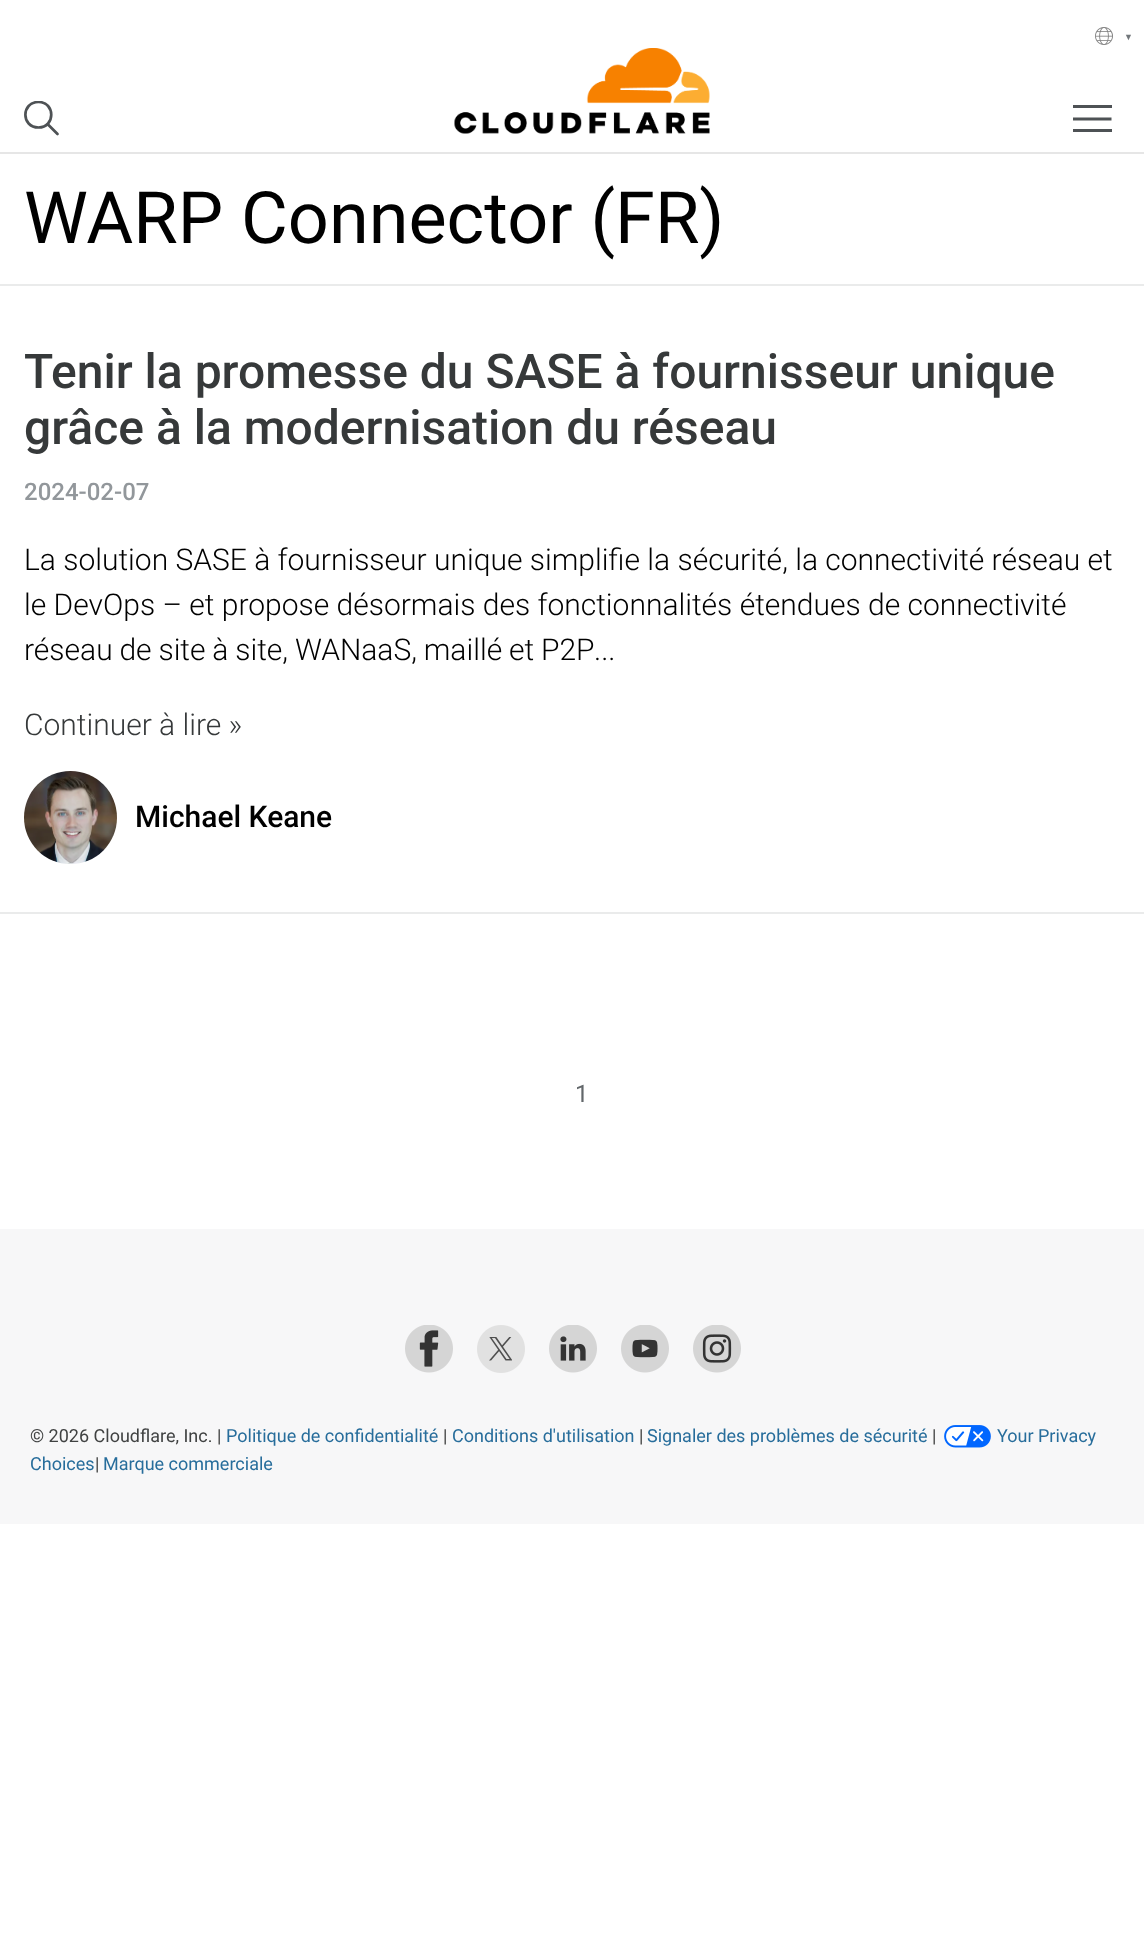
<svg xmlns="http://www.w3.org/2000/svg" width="1144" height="1947">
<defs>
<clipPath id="clip1"><rect x="24" y="101" width="36" height="36"/></clipPath>
<clipPath id="clip2"><rect x="1073" y="105" width="39" height="27"/></clipPath>
</defs>
<rect width="100%" height="100%" fill="#fff"/>
<image x="1095" y="27" width="18" height="18" href="media/1.png"/>
<text x="1124" y="40" style="font-family:Liberation Sans;font-size:9px;fill:#72777b">▼</text>
<image x="454" y="48" width="256" height="86" href="media/2.png"/>
<rect y="152" width="1144" height="2" fill="#e6e6e6"/>
<g clip-path="url(#clip1)">
<path d="M38.5 127.5c17 0 17-25.5 0-25.5c-17.5 0-17.5 25.5 0 25.5z" fill="none" stroke="#4e5255" stroke-width="2.7" stroke-linecap="round" stroke-linejoin="round"/>
</g>
<path d="M48 124.5l9.5 9.5" fill="none" stroke="#4e5255" stroke-width="2.7" stroke-linecap="round" stroke-linejoin="round"/>
<rect x="1073" y="105" width="39" height="3" fill="#4e5255"/>
<g clip-path="url(#clip2)">
<path d="M1072.5 119h39" fill="none" stroke="#4e5255" stroke-width="3"/>
</g>
<rect x="1073" y="129" width="39" height="3" fill="#4e5255"/>
<rect y="284" width="1144" height="2" fill="#eaebeb"/>
<text x="24" y="243" style="font-family:Roboto;font-size:72px;fill:#000">WARP Connector (FR)</text>
<rect y="912" width="1144" height="2" fill="#eaebeb"/>
<text x="24" y="388" style="font-family:Roboto;font-size:48px;font-weight:500;fill:#36393a">Tenir la promesse du SASE à fournisseur unique</text>
<text x="24" y="444" style="font-family:Roboto;font-size:48px;font-weight:500;fill:#36393a">grâce à la modernisation du réseau</text>
<text x="24" y="500" style="font-family:Roboto;font-size:24px;font-weight:500;fill:#92979b">2024-02-07</text>
<text x="24" y="570" style="font-family:Roboto;font-size:30px;font-weight:300;fill:#000">La solution SASE à fournisseur unique simplifie la sécurité, la connectivité réseau et</text>
<text x="24" y="615" style="font-family:Roboto;font-size:30px;font-weight:300;fill:#000">le DevOps – et propose désormais des fonctionnalités étendues de connectivité</text>
<text x="24" y="660" word-spacing="-0.5" style="font-family:Roboto;font-size:30px;font-weight:300;fill:#000">réseau de site à site, WANaaS, maillé et P2P</text>
<text x="594" y="660" style="font-family:Roboto;font-size:30px;font-weight:300;fill:#000">...</text>
<text x="24" y="735" style="font-family:Roboto;font-size:30px;font-weight:300;fill:#36393a">Continuer à lire »</text>
<image x="24" y="771" width="93" height="93" href="media/3.png"/>
<text x="135" y="827" style="font-family:Roboto;font-size:30px;font-weight:500;fill:#000">Michael Keane</text>
<text x="575" y="1102" style="font-family:Roboto;font-size:24px;fill:#62676a">1</text>
<rect y="1229" width="1144" height="295" fill="#f7f7f8"/>
<image x="405" y="1325" width="48" height="48" href="media/4.png"/>
<image x="477" y="1325" width="48" height="48" href="media/5.png"/>
<image x="549" y="1325" width="48" height="48" href="media/6.png"/>
<image x="621" y="1325" width="48" height="48" href="media/7.png"/>
<image x="693" y="1325" width="48" height="48" href="media/8.png"/>
<text x="30" y="1442" style="font-family:Roboto;font-size:18px;fill:#404242">© 2026 Cloudflare, Inc. |</text>
<text x="226" y="1442" style="font-family:Roboto;font-size:18px;fill:#276d9b">Politique de confidentialité</text>
<text x="443" y="1442" style="font-family:Roboto;font-size:18px;fill:#404242">|</text>
<text x="452" y="1442" style="font-family:Roboto;font-size:18px;fill:#276d9b">Conditions d'utilisation</text>
<text x="639" y="1442" style="font-family:Roboto;font-size:18px;fill:#404242">|</text>
<text x="647" y="1442" style="font-family:Roboto;font-size:18px;fill:#276d9b">Signaler des problèmes de sécurité</text>
<text x="932" y="1442" style="font-family:Roboto;font-size:18px;fill:#404242">|</text>
<image x="944" y="1425" width="47" height="23" href="media/9.png"/>
<text x="997" y="1442" style="font-family:Roboto;font-size:18px;fill:#276d9b">Your Privacy</text>
<text x="30" y="1470" style="font-family:Roboto;font-size:18px;fill:#276d9b">Choices</text>
<text x="95" y="1470" style="font-family:Roboto;font-size:18px;fill:#404242">|</text>
<text x="103" y="1470" style="font-family:Roboto;font-size:18px;fill:#276d9b">Marque commerciale</text>
</svg>
